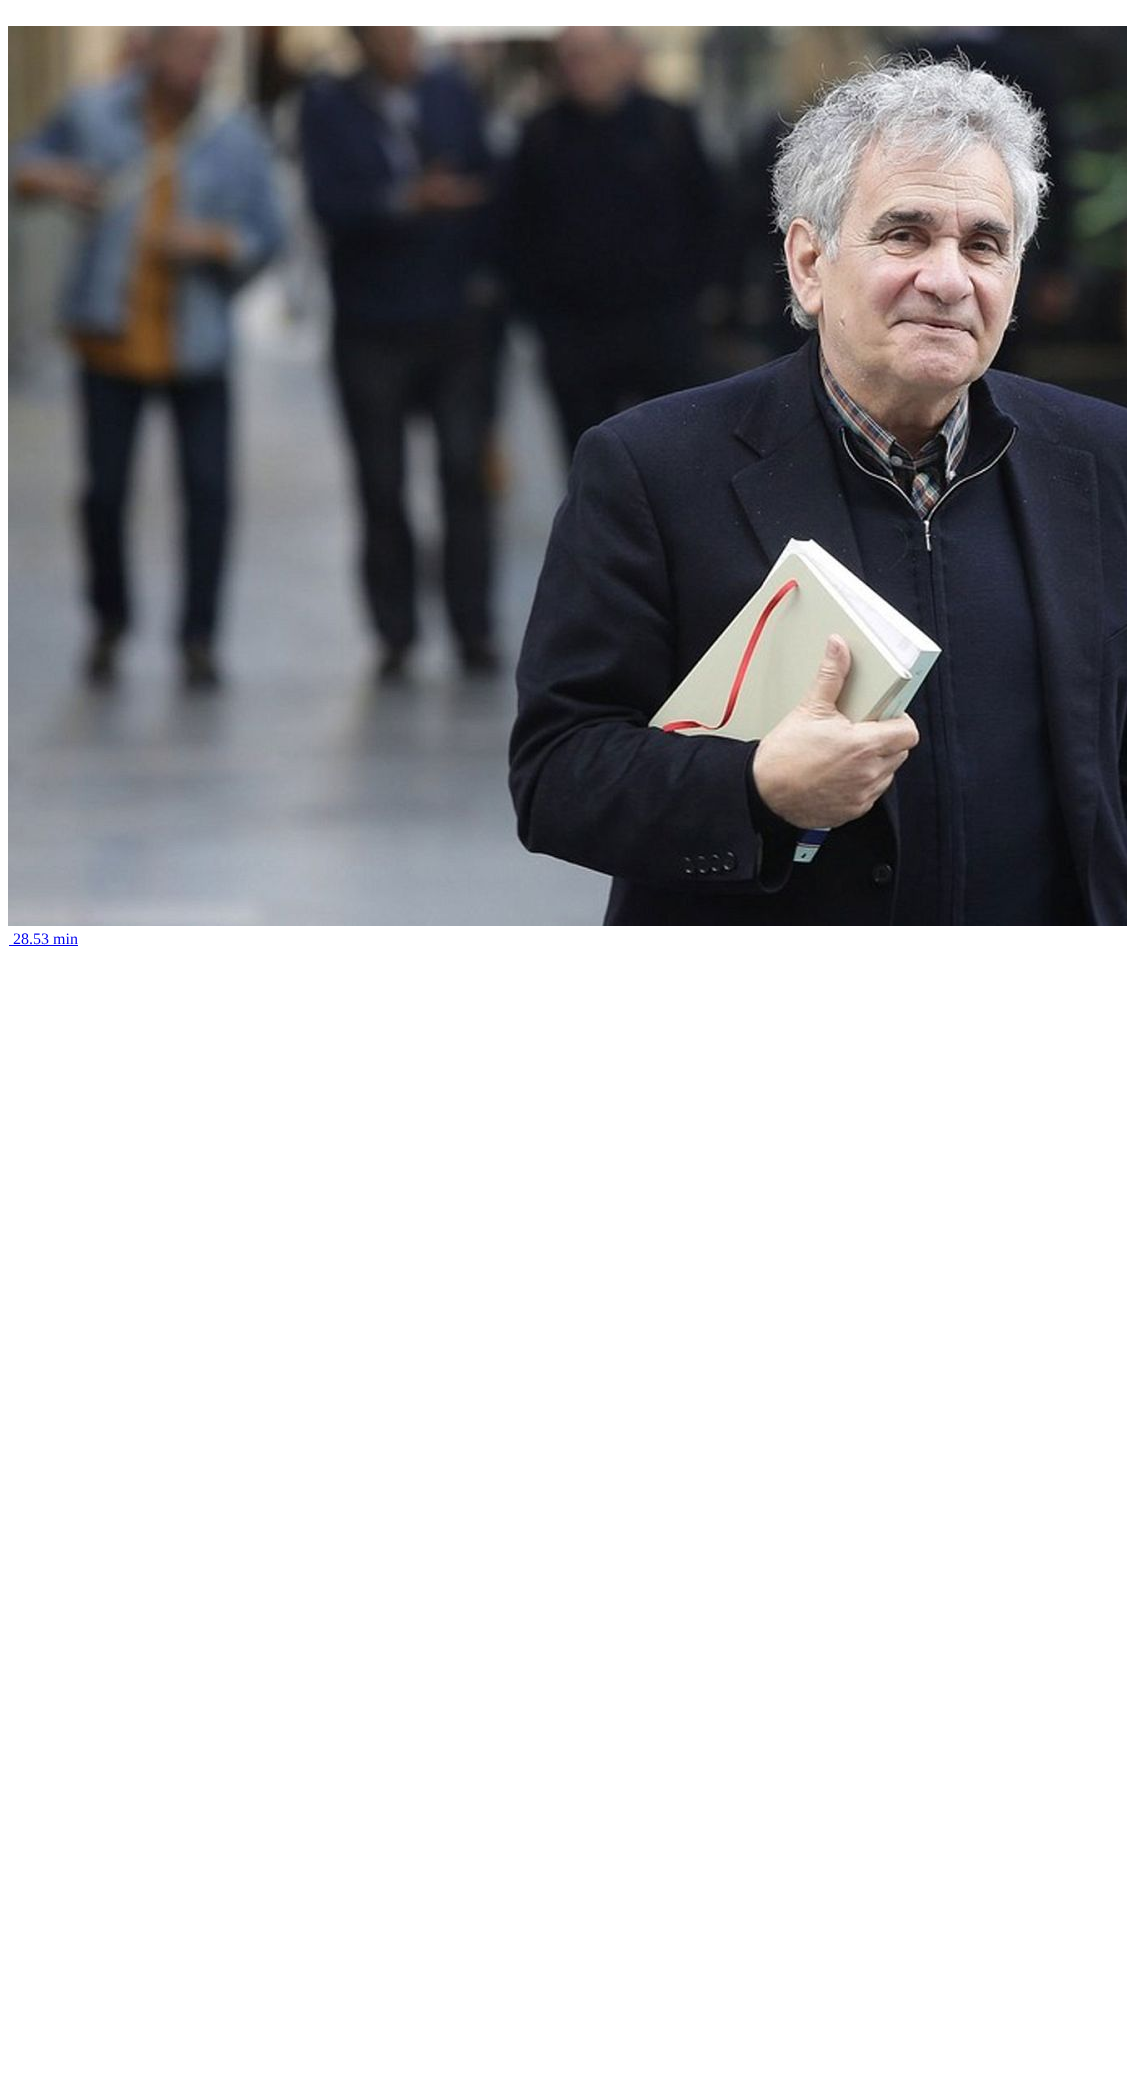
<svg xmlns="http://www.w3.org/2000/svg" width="1127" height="2077">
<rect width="100%" height="100%" fill="#fff"/>
<image x="8" y="26" width="1119" height="900" href="media/1.png"/>
<text x="13" y="944" style="font-family:Liberation Serif;font-size:16px;fill:#00e">28.53 min</text>
<rect x="9" y="945" width="69" height="1" fill="#00e"/>
</svg>
